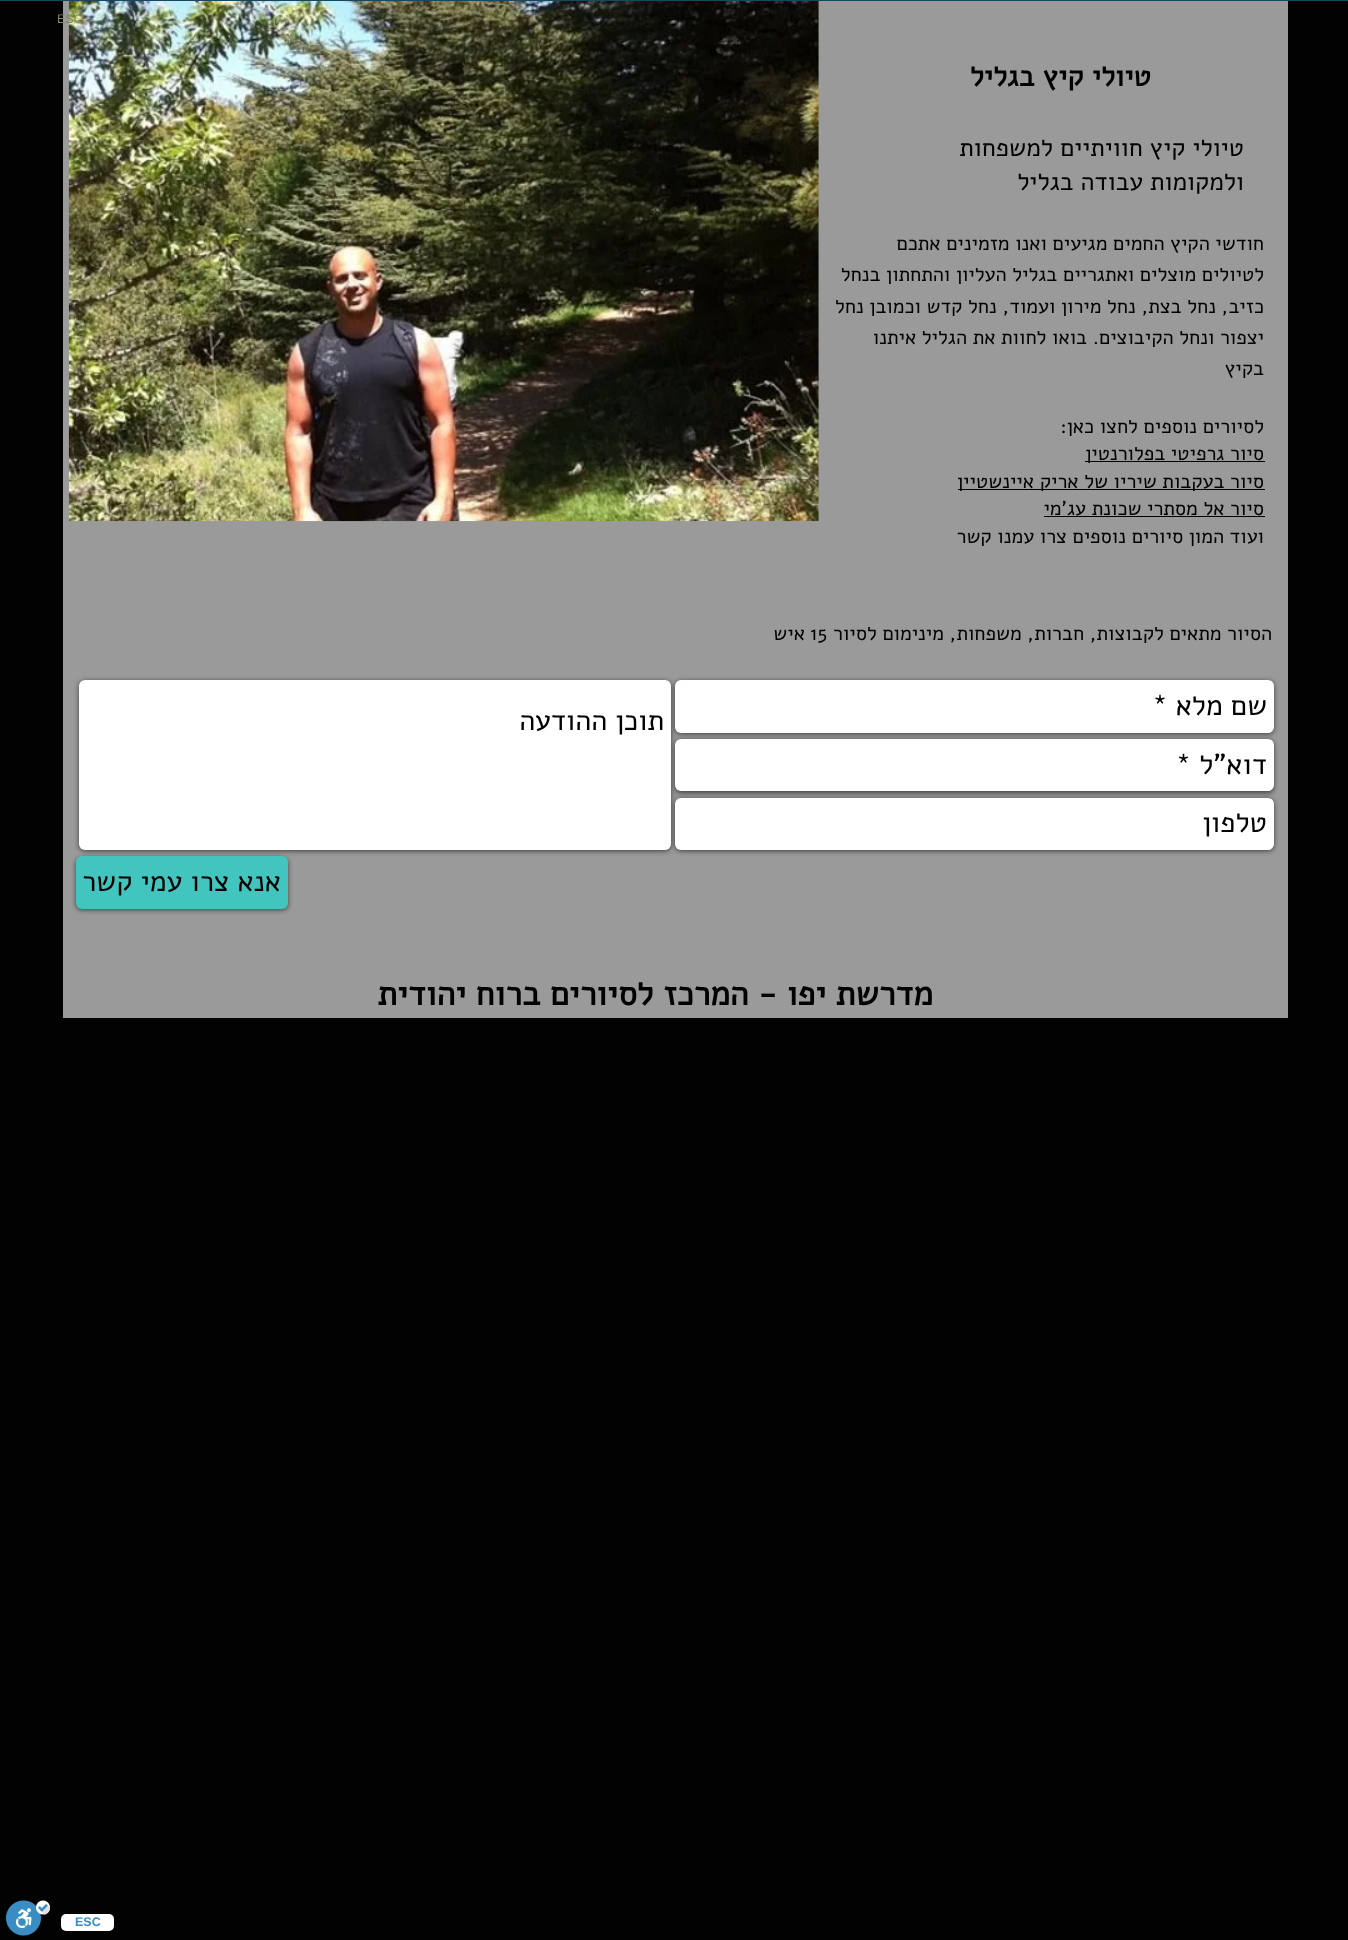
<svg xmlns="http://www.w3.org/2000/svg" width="1348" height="1940">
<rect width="100%" height="100%" fill="#020202"/>
<rect x="63" y="1" width="1225" height="1017" fill="#9a9a9a"/>
<text x="1151" y="86" style="font-family:Alef;font-size:28.75px;font-weight:bold;direction:rtl;fill:#020202">טיולי קיץ בגליל</text>
<image x="68" y="1" width="751" height="521" href="media/1.png"/>
<text x="1244" y="156" style="font-family:Alef;font-size:25px;direction:rtl;fill:#020202">טיולי קיץ חוויתיים למשפחות</text>
<text x="1244" y="190" style="font-family:Alef;font-size:25px;direction:rtl;fill:#020202">ולמקומות עבודה בגליל</text>
<text x="1264" y="250" style="font-family:Alef;font-size:20px;direction:rtl;fill:#020202">חודשי הקיץ החמים מגיעים ואנו מזמינים אתכם</text>
<text x="1264" y="281" style="font-family:Alef;font-size:20px;direction:rtl;fill:#020202">לטיולים מוצלים ואתגריים בגליל העליון והתחתון בנחל</text>
<text x="1264" y="313" style="font-family:Alef;font-size:20px;direction:rtl;fill:#020202">כזיב, נחל בצת, נחל מירון ועמוד, נחל קדש וכמובן נחל</text>
<text x="1264" y="344" style="font-family:Alef;font-size:20px;direction:rtl;fill:#020202">יצפור ונחל הקיבוצים. בואו לחוות את הגליל איתנו</text>
<text x="1264" y="375" style="font-family:Alef;font-size:20px;direction:rtl;fill:#020202">בקיץ</text>
<text x="1264" y="433" style="font-family:Alef;font-size:20px;direction:rtl;fill:#020202">לסיורים נוספים לחצו כאן:</text>
<rect x="1085" y="461" width="180" height="1" fill="#020202"/>
<text x="1264" y="460" style="font-family:Alef;font-size:20px;direction:rtl;fill:#020202">סיור גרפיטי בפלורנטין</text>
<rect x="958" y="489" width="307" height="1" fill="#020202"/>
<text x="1264" y="488" style="font-family:Alef;font-size:20px;direction:rtl;fill:#020202">סיור בעקבות שיריו של אריק איינשטיין</text>
<text x="1264" y="515" style="font-family:Alef;font-size:20px;direction:rtl;fill:#020202">סיור אל מסתרי שכונת עג'מי</text>
<rect x="1044" y="516" width="221" height="1" fill="#020202"/>
<text x="1264" y="543" style="font-family:Alef;font-size:20px;direction:rtl;fill:#020202">ועוד המון סיורים נוספים צרו עמנו קשר</text>
<text x="1272" y="640" style="font-family:Alef;font-size:20px;direction:rtl;fill:#020202">הסיור מתאים לקבוצות, חברות, משפחות, מינימום לסיור</text>
<text x="810" y="640" style="font-family:Alef;font-size:20px;fill:#020202">15</text>
<text x="805" y="640" style="font-family:Alef;font-size:20px;direction:rtl;fill:#020202">איש</text>
<rect x="79" y="681" width="592" height="170" rx="6" fill="#00000099" filter="blur(2.5px)"/>
<rect x="79" y="680" width="592" height="170" rx="6" fill="#fff"/>
<rect x="675" y="681" width="599" height="53" rx="6" fill="#00000099" filter="blur(2.5px)"/>
<rect x="675" y="680" width="599" height="53" rx="6" fill="#fff"/>
<text x="1267" y="715" style="font-family:Alef;font-size:28.75px;direction:rtl;fill:#020202">שם מלא *</text>
<text x="664" y="730" style="font-family:Alef;font-size:28.75px;direction:rtl;fill:#020202">תוכן ההודעה</text>
<rect x="675" y="740" width="599" height="53" rx="6" fill="#00000099" filter="blur(2.5px)"/>
<rect x="675" y="739" width="599" height="52" rx="6" fill="#fff"/>
<text x="1267" y="774" style="font-family:Alef;font-size:28.75px;direction:rtl;fill:#020202">דוא"ל *</text>
<rect x="675" y="799" width="599" height="52" rx="6" fill="#00000099" filter="blur(2.5px)"/>
<rect x="675" y="798" width="599" height="52" rx="6" fill="#fff"/>
<text x="1267" y="832" style="font-family:Alef;font-size:28.75px;direction:rtl;fill:#020202">טלפון</text>
<rect x="76" y="858" width="212" height="52" rx="6" fill="#00000099" filter="blur(2.5px)"/>
<rect x="76" y="856" width="212" height="53" rx="6" fill="#42c5be"/>
<text x="281" y="891" style="font-family:Alef;font-size:28.75px;direction:rtl;fill:#020202">אנא צרו עמי קשר</text>
<text x="933" y="1005" style="font-family:Alef;font-size:33.75px;font-weight:bold;direction:rtl;fill:#020202">מדרשת יפו - המרכז לסיורים ברוח יהודית</text>
<rect width="1348" height="1" fill="#15495f"/>
<text x="57" y="23" style="font-family:Liberation Sans;font-size:12.5px;fill:#808461">ESC</text>
<rect x="61" y="1914" width="53" height="17" rx="5" fill="#fff"/>
<text x="75" y="1926" style="font-family:Liberation Sans;font-size:12.5px;font-weight:bold;fill:#3a8dc2">ESC</text>
<image x="6" y="1900" width="44" height="36" href="media/2.png"/>
</svg>
